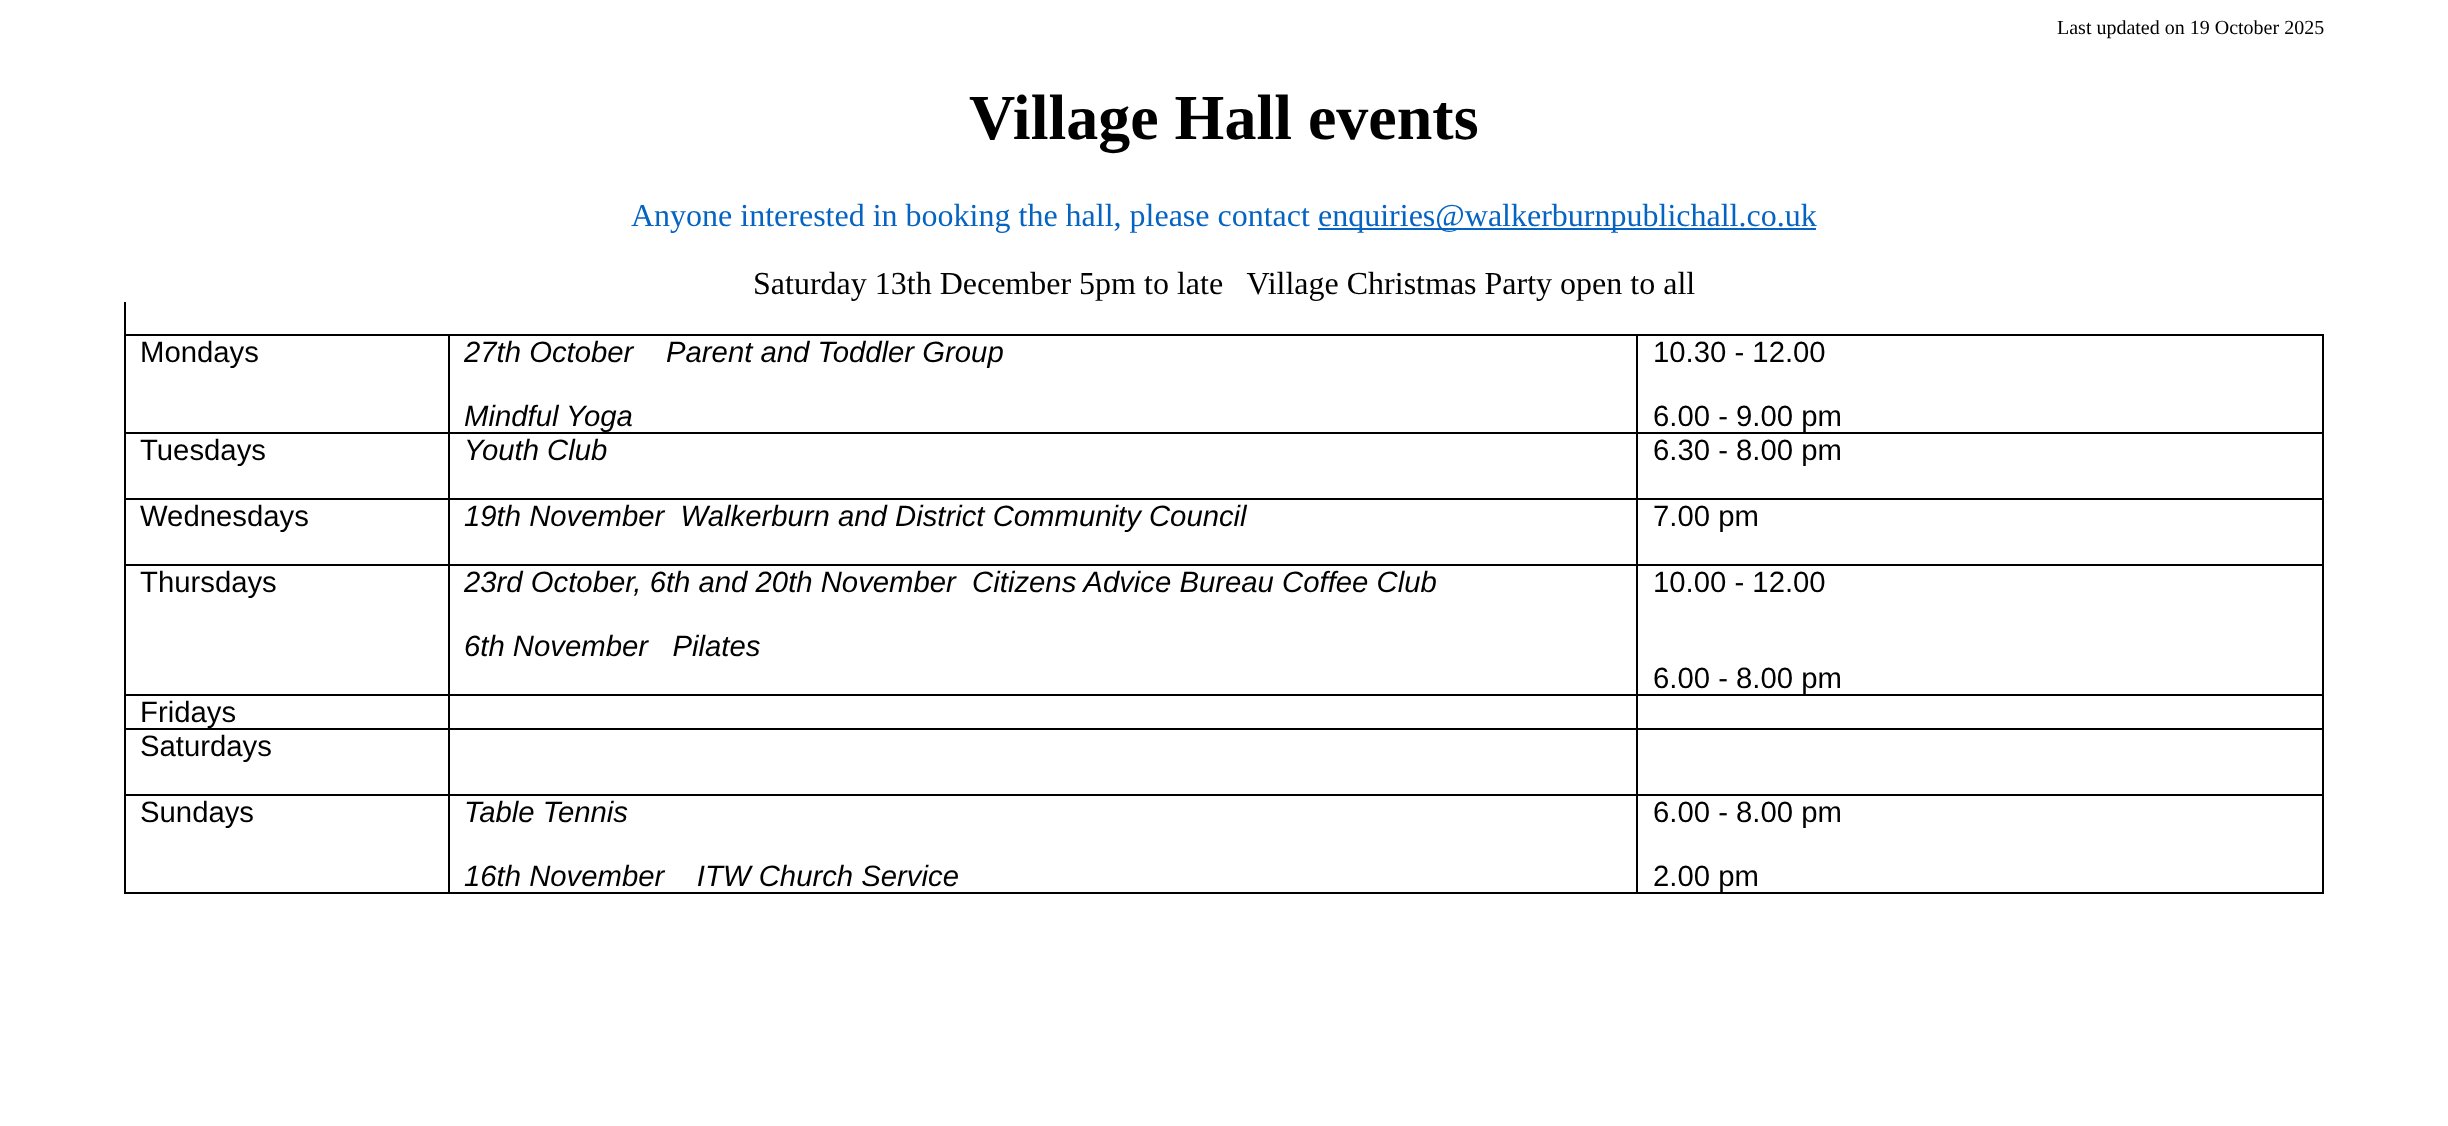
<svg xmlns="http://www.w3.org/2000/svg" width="2448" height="1126">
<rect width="100%" height="100%" fill="#fff"/>
<text x="2057" y="34" style="font-family:Liberation Serif;font-size:20px;fill:#000">Last updated on 19 October 2025</text>
<text x="969" y="139" style="font-family:Liberation Serif;font-size:64px;font-weight:bold;fill:#000">Village Hall events</text>
<text x="631" y="226" style="font-family:Liberation Serif;font-size:32px;fill:#0563c1">Anyone interested in booking the hall, please contact</text>
<rect x="1318" y="228" width="498" height="2" fill="#0563c1"/>
<text x="1318" y="226" style="font-family:Liberation Serif;font-size:32px;fill:#0563c1">enquiries@walkerburnpublichall.co.uk</text>
<text x="753" y="294" style="font-family:Liberation Serif;font-size:32px;fill:#000" xml:space="preserve">Saturday 13th December 5pm to late   Village Christmas Party open to all</text>
<rect x="124" y="334" width="2200" height="2" fill="#000"/>
<rect x="124" y="302" width="2" height="34" fill="#000"/>
<rect x="124" y="432" width="1512" height="2" fill="#000"/>
<rect x="124" y="336" width="2" height="98" fill="#000"/>
<text x="140" y="362" style="font-family:Liberation Sans;font-size:29.3px;fill:#000">Mondays</text>
<rect x="448" y="336" width="2" height="98" fill="#000"/>
<text x="464" y="362" style="font-family:Liberation Sans;font-size:29.3px;font-style:italic;fill:#000">27th October</text>
<text x="666" y="362" style="font-family:Liberation Sans;font-size:29.3px;font-style:italic;fill:#000">Parent and Toddler Group</text>
<text x="464" y="426" style="font-family:Liberation Sans;font-size:29.3px;font-style:italic;fill:#000">Mindful</text>
<text x="566" y="426" style="font-family:Liberation Sans;font-size:29.3px;font-style:italic;fill:#000">Yoga</text>
<rect x="2322" y="336" width="2" height="558" fill="#000"/>
<rect x="1636" y="432" width="688" height="2" fill="#000"/>
<rect x="1636" y="336" width="2" height="98" fill="#000"/>
<text x="1653" y="362" style="font-family:Liberation Sans;font-size:29.3px;fill:#000">10.30 - 12.00</text>
<text x="1653" y="426" style="font-family:Liberation Sans;font-size:29.3px;fill:#000">6.00 - 9.00 pm</text>
<rect x="124" y="498" width="2200" height="2" fill="#000"/>
<rect x="124" y="434" width="2" height="66" fill="#000"/>
<text x="140" y="460" style="font-family:Liberation Sans;font-size:29.3px;fill:#000">Tuesdays</text>
<rect x="448" y="434" width="2" height="66" fill="#000"/>
<text x="464" y="460" style="font-family:Liberation Sans;font-size:29.3px;font-style:italic;fill:#000">Youth Club</text>
<rect x="1636" y="434" width="2" height="66" fill="#000"/>
<text x="1653" y="460" style="font-family:Liberation Sans;font-size:29.3px;fill:#000">6.30 - 8.00 pm</text>
<rect x="124" y="564" width="2200" height="2" fill="#000"/>
<rect x="124" y="500" width="2" height="66" fill="#000"/>
<text x="140" y="526" style="font-family:Liberation Sans;font-size:29.3px;fill:#000">Wednesdays</text>
<rect x="448" y="500" width="2" height="66" fill="#000"/>
<text x="464" y="526" style="font-family:Liberation Sans;font-size:29.3px;font-style:italic;fill:#000" xml:space="preserve">19th November  Walkerburn and District Community Council</text>
<rect x="1636" y="500" width="2" height="66" fill="#000"/>
<text x="1653" y="526" style="font-family:Liberation Sans;font-size:29.3px;fill:#000">7.00 pm</text>
<rect x="124" y="694" width="2200" height="2" fill="#000"/>
<rect x="124" y="566" width="2" height="130" fill="#000"/>
<text x="140" y="592" style="font-family:Liberation Sans;font-size:29.3px;fill:#000">Thursdays</text>
<rect x="448" y="566" width="2" height="130" fill="#000"/>
<text x="464" y="592" style="font-family:Liberation Sans;font-size:29.3px;font-style:italic;fill:#000" xml:space="preserve">23rd October, 6th and 20th November  Citizens Advice Bureau Coffee Club</text>
<text x="464" y="656" style="font-family:Liberation Sans;font-size:29.3px;font-style:italic;fill:#000" xml:space="preserve">6th November   Pilates</text>
<rect x="1636" y="566" width="2" height="130" fill="#000"/>
<text x="1653" y="592" style="font-family:Liberation Sans;font-size:29.3px;fill:#000">10.00 - 12.00</text>
<text x="1653" y="688" style="font-family:Liberation Sans;font-size:29.3px;fill:#000">6.00 - 8.00 pm</text>
<rect x="124" y="728" width="2200" height="2" fill="#000"/>
<rect x="124" y="696" width="2" height="34" fill="#000"/>
<text x="140" y="722" style="font-family:Liberation Sans;font-size:29.3px;fill:#000">Fridays</text>
<rect x="448" y="696" width="2" height="34" fill="#000"/>
<rect x="1636" y="696" width="2" height="34" fill="#000"/>
<rect x="124" y="794" width="2200" height="2" fill="#000"/>
<rect x="124" y="730" width="2" height="66" fill="#000"/>
<text x="140" y="756" style="font-family:Liberation Sans;font-size:29.3px;fill:#000">Saturdays</text>
<rect x="448" y="730" width="2" height="66" fill="#000"/>
<rect x="1636" y="730" width="2" height="66" fill="#000"/>
<rect x="124" y="892" width="2200" height="2" fill="#000"/>
<rect x="124" y="796" width="2" height="98" fill="#000"/>
<text x="140" y="822" style="font-family:Liberation Sans;font-size:29.3px;fill:#000">Sundays</text>
<rect x="448" y="796" width="2" height="98" fill="#000"/>
<text x="464" y="822" style="font-family:Liberation Sans;font-size:29.3px;font-style:italic;fill:#000">Table Tennis</text>
<text x="464" y="886" style="font-family:Liberation Sans;font-size:29.3px;font-style:italic;fill:#000" xml:space="preserve">16th November    ITW Church Service</text>
<rect x="1636" y="796" width="2" height="98" fill="#000"/>
<text x="1653" y="822" style="font-family:Liberation Sans;font-size:29.3px;fill:#000">6.00 - 8.00 pm</text>
<text x="1653" y="886" style="font-family:Liberation Sans;font-size:29.3px;fill:#000">2.00 pm</text>
</svg>
